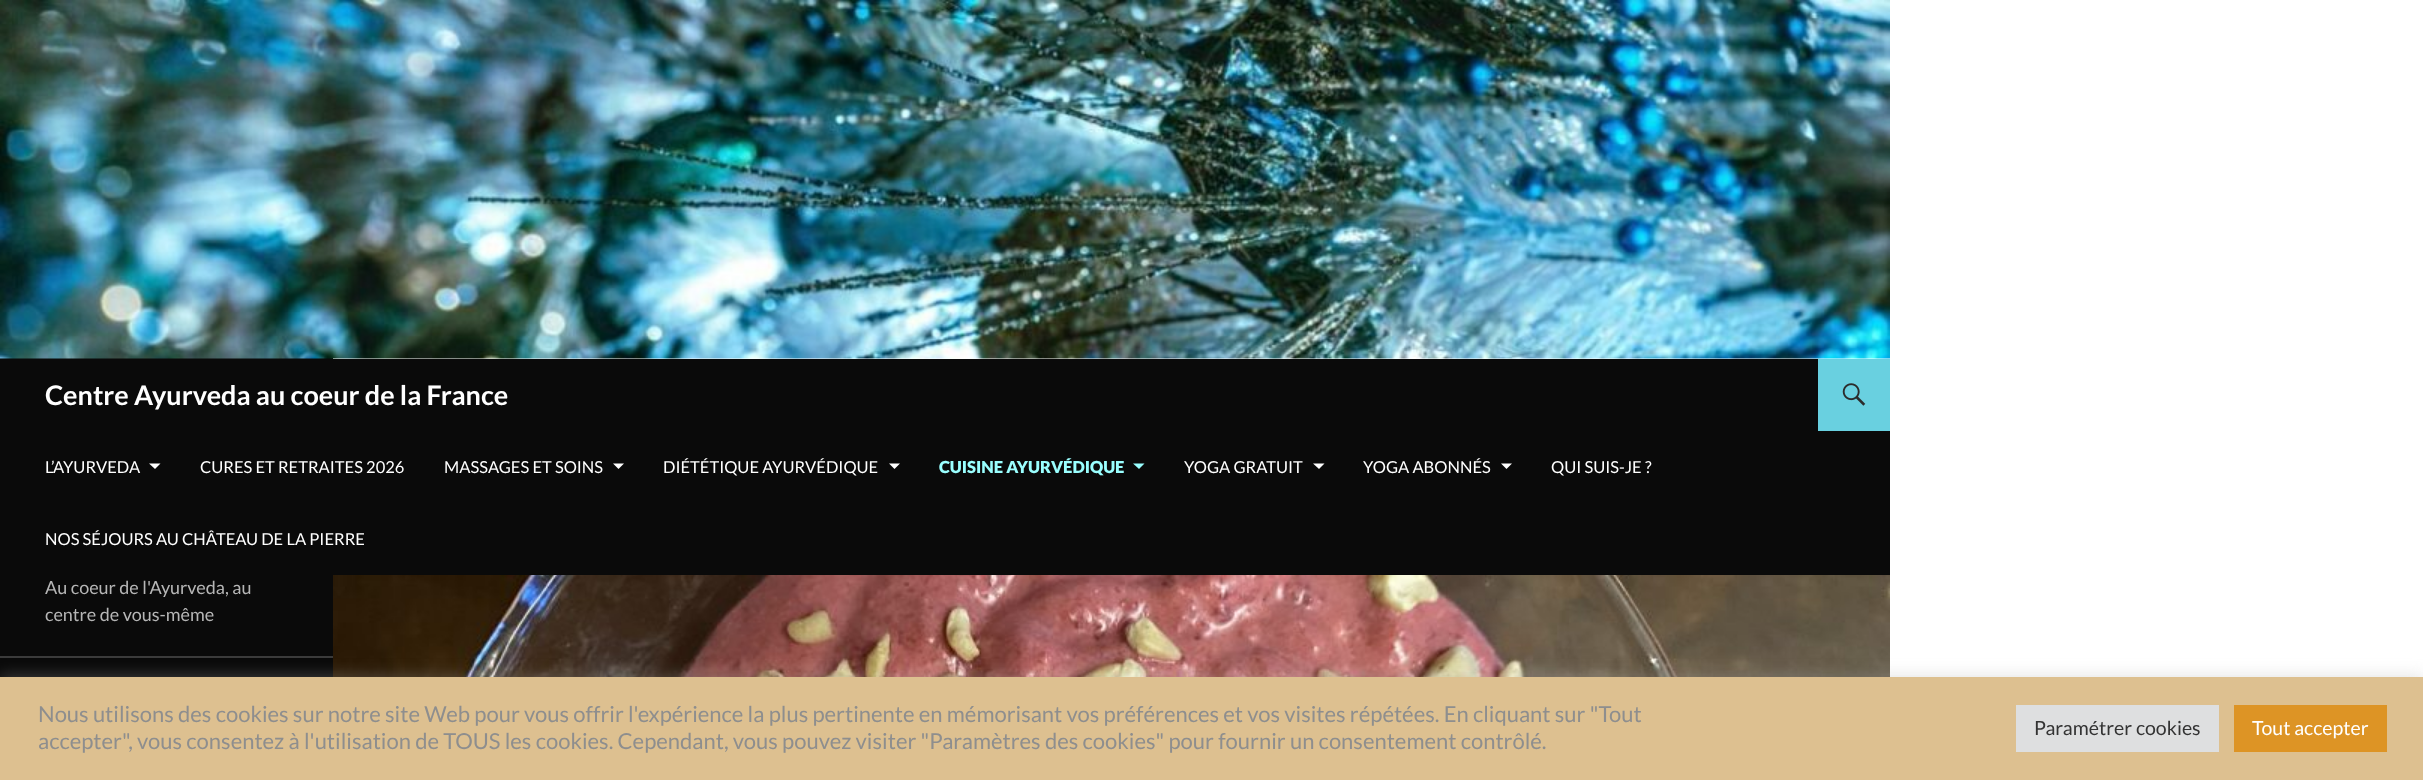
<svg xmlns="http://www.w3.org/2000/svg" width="2423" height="780">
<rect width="100%" height="100%" fill="#fff"/>
<rect y="358" width="333" height="319" fill="#0a0a0a"/>
<image x="0" y="0" width="1890" height="359" href="media/1.png"/>
<rect x="333" y="359" width="1557" height="216" fill="#0a0a0a"/>
<text x="45" y="405" style="font-family:Lato;font-size:27px;font-weight:bold;fill:#fff">Centre Ayurveda au coeur de la France</text>
<rect x="1818" y="359" width="72" height="72" fill="#69d0e0"/>
<image x="1842" y="383" width="24" height="23" href="media/2.png"/>
<text x="45" y="473" style="font-family:Lato;font-size:16.5px;fill:#fff">L’AYURVEDA</text>
<path d="M149 463.5h11.5l-5.5 5.5z" fill="#fff"/>
<text x="200" y="473" style="font-family:Lato;font-size:16.5px;fill:#fff">CURES ET RETRAITES 2026</text>
<text x="444" y="473" style="font-family:Lato;font-size:16.5px;fill:#fff">MASSAGES ET SOINS</text>
<path d="M613 463.5h11l-5.5 5.5z" fill="#fff"/>
<text x="663" y="473" style="font-family:Lato;font-size:16.5px;fill:#fff">DIÉTÉTIQUE AYURVÉDIQUE</text>
<path d="M889 463.5h11l-5.5 5.5z" fill="#fff"/>
<text x="939" y="473" style="font-family:Lato;font-size:16.5px;font-weight:900;fill:#9affff">CUISINE AYURVÉDIQUE</text>
<path d="M1133 463.5h11.5l-5.5 5.5z" fill="#9affff"/>
<text x="1184" y="473" style="font-family:Lato;font-size:16.5px;fill:#fff">YOGA GRATUIT</text>
<path d="M1313 463.5h11.5l-5.5 5.5z" fill="#fff"/>
<text x="1363" y="473" style="font-family:Lato;font-size:16.5px;fill:#fff">YOGA ABONNÉS</text>
<path d="M1501 463.5h11l-5.5 5.5z" fill="#fff"/>
<text x="1551" y="473" style="font-family:Lato;font-size:16.5px;fill:#fff">QUI SUIS-JE ?</text>
<text x="45" y="545" style="font-family:Lato;font-size:16.5px;fill:#fff">NOS SÉJOURS AU CHÂTEAU DE LA PIERRE</text>
<text x="45" y="594" style="font-family:Lato;font-size:18px;fill:#b6b6b6">Au coeur de l'Ayurveda, au</text>
<text x="45" y="621" style="font-family:Lato;font-size:18px;fill:#b6b6b6">centre de vous-même</text>
<rect y="656" width="333" height="2" fill="#3b3b3b"/>
<image x="333" y="575" width="1557" height="102" href="media/3.png"/>
<rect y="675" width="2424" height="104" fill="#acabab4d" filter="blur(7.5px)"/>
<rect y="677" width="2423" height="103" fill="#ddc090"/>
<text x="38" y="722" style="font-family:Lato;font-size:22px;fill:#8e8e8e">Nous utilisons des cookies sur notre site Web pour vous offrir l'expérience la plus pertinente en mémorisant vos préférences et vos visites répétées. En cliquant sur "Tout</text>
<text x="38" y="749" style="font-family:Lato;font-size:22px;fill:#8e8e8e">accepter", vous consentez à l'utilisation de TOUS les cookies. Cependant, vous pouvez visiter "Paramètres des cookies" pour fournir un consentement contrôlé.</text>
<rect x="2016" y="705" width="203" height="47" fill="#dedfe0"/>
<text x="2034" y="735" style="font-family:Lato;font-size:19.5px;fill:#333">Paramétrer cookies</text>
<rect x="2234" y="705" width="153" height="47" fill="#dd9425"/>
<text x="2252" y="735" style="font-family:Lato;font-size:19.5px;fill:#fff">Tout accepter</text>
</svg>
